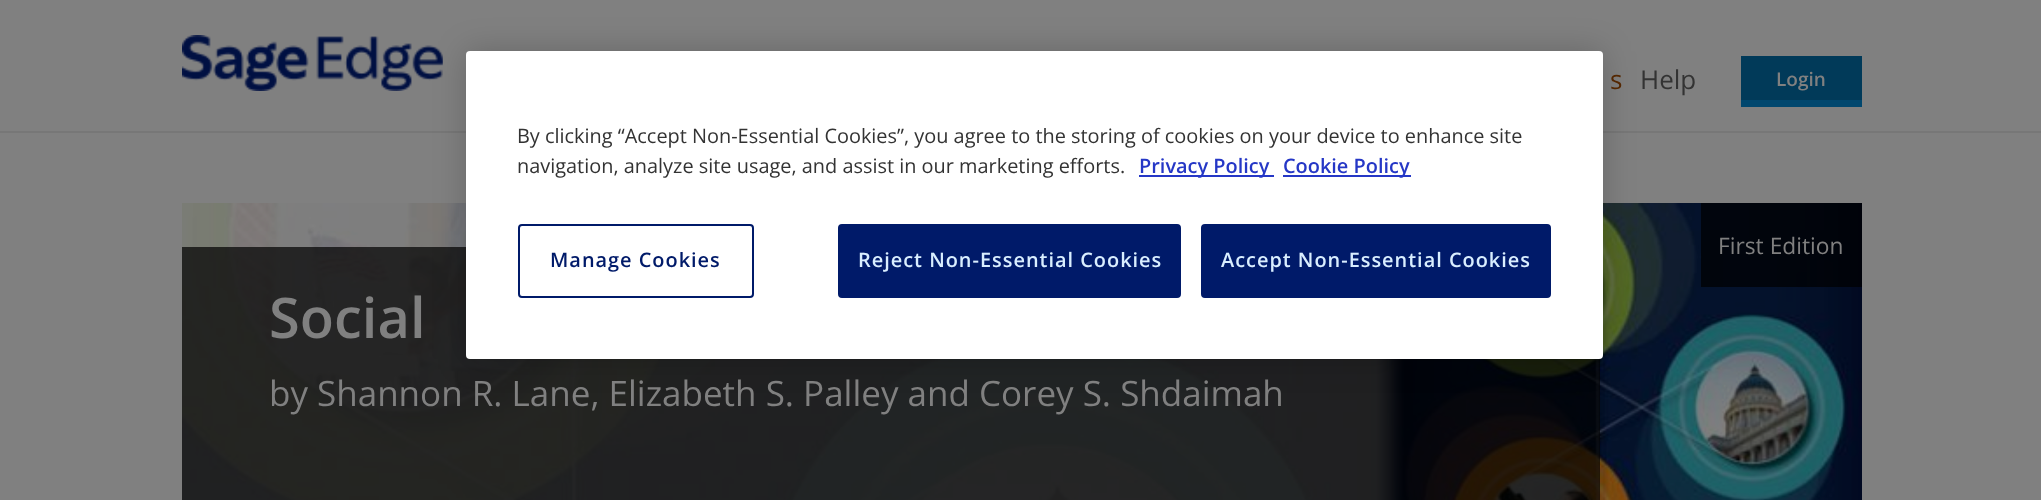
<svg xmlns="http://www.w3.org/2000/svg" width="2041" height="500">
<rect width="100%" height="100%" fill="#808080"/>
<rect y="131" width="2041" height="2" fill="#777"/>
<image x="182" y="35" width="261" height="56" href="media/1.png"/>
<text x="1610" y="89" style="font-family:Open Sans;font-size:26px;fill:#582902">s</text>
<text x="1640" y="89" style="font-family:Open Sans;font-size:26px;fill:#333">Help</text>
<rect x="1741" y="56" width="121" height="44" fill="#013a59"/>
<text x="1776" y="86" style="font-family:Open Sans;font-size:19px;font-weight:600;fill:#808080">Login</text>
<rect x="1741" y="100" width="121" height="7" fill="#01476e"/>
<image x="182" y="203" width="1680" height="297" href="media/2.png"/>
<rect x="182" y="247" width="1418" height="253" fill="#000000b3"/>
<rect x="466" y="51" width="1137" height="308" rx="4" fill="#00000033" filter="blur(16px)"/>
<rect x="466" y="51" width="1137" height="308" rx="4" fill="#fff"/>
<text x="517" y="143" style="font-family:Open Sans;font-size:19.92px;fill:#333">By clicking “Accept Non-Essential Cookies”, you agree to the storing of cookies on your device to enhance site</text>
<text x="517" y="173" style="font-family:Open Sans;font-size:19.92px;fill:#333">navigation, analyze site usage, and assist in our marketing efforts.</text>
<rect x="1139" y="175" width="135" height="2" fill="#2537c6"/>
<text x="1139" y="173" style="font-family:Open Sans;font-size:19.92px;font-weight:600;fill:#2537c6">Privacy Policy</text>
<rect x="1283" y="175" width="128" height="2" fill="#2537c6"/>
<text x="1283" y="173" style="font-family:Open Sans;font-size:19.92px;font-weight:600;fill:#2537c6">Cookie Policy</text>
<rect x="519" y="225" width="234" height="72" rx="3" fill="none" stroke="#001a69" stroke-width="2"/>
<text x="550" y="267" style="font-family:Open Sans;font-size:19.92px;font-weight:600;letter-spacing:1px;fill:#001a69">Manage Cookies</text>
<rect x="839" y="225" width="341" height="72" rx="3" fill="#001a69" stroke="#001a69" stroke-width="2"/>
<text x="858" y="267" style="font-family:Open Sans;font-size:19.92px;font-weight:600;letter-spacing:1px;fill:#d9eeff">Reject Non-Essential Cookies</text>
<rect x="1202" y="225" width="348" height="72" rx="3" fill="#001a69" stroke="#001a69" stroke-width="2"/>
<text x="1221" y="267" style="font-family:Open Sans;font-size:19.92px;font-weight:600;letter-spacing:1px;fill:#d9eeff">Accept Non-Essential Cookies</text>
<rect x="1701" y="203" width="161" height="84" fill="#000000b3"/>
<text x="1718" y="254" style="font-family:Open Sans;font-size:22.75px;fill:#808080">First Edition</text>
<text x="269" y="338" style="font-family:Open Sans;font-size:56px;font-weight:600;fill:#808080">Social</text>
<text x="269" y="406" style="font-family:Open Sans;font-size:35px;fill:#808080">by Shannon R. Lane, Elizabeth S. Palley and Corey S. Shdaimah</text>
</svg>
